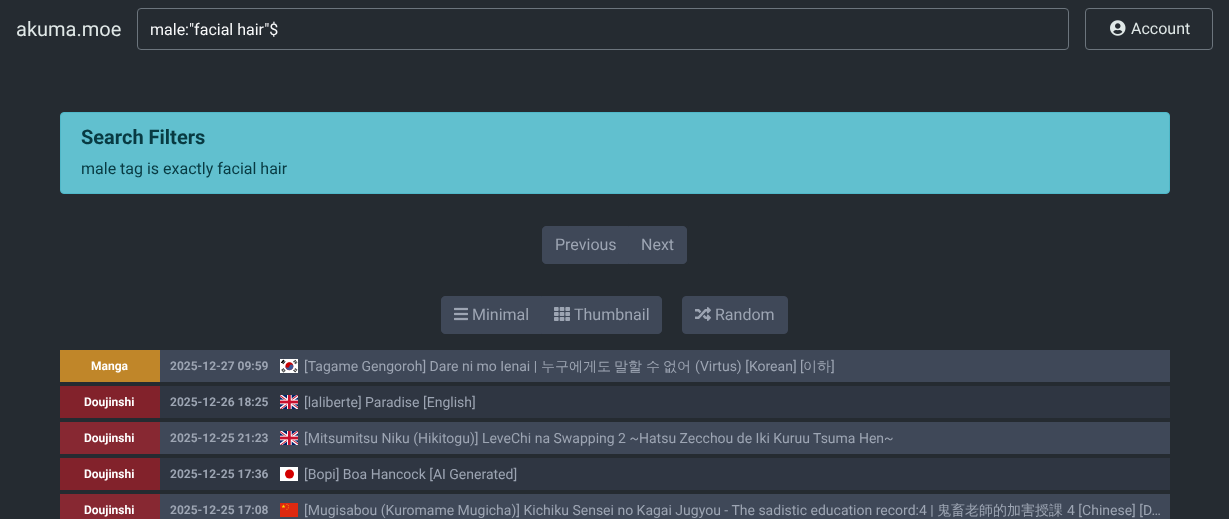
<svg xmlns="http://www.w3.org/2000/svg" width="1229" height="519">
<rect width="100%" height="100%" fill="#252b31"/>
<text x="16" y="36" style="font-family:Roboto;font-size:20px;fill:#e0e8e7">akuma.moe</text>
<rect x="137.5" y="8.5" width="931" height="41" rx="3.5" fill="none" stroke="#6c757d"/>
<text x="150" y="35" style="font-family:Roboto;font-size:16px;fill:#f8f9fa">male:"facial hair"$</text>
<rect x="1085.5" y="8.5" width="127" height="41" rx="3.5" fill="none" stroke="#6c757d"/>
<image x="1110" y="20" width="16" height="16" href="media/1.png"/>
<text x="1131" y="34" style="font-family:Roboto;font-size:16px;fill:#e0e8e7">Account</text>
<rect x="60.5" y="112.5" width="1109" height="81" rx="3.5" fill="#61c0cf" stroke="#4fb8c9"/>
<text x="81" y="144" style="font-family:Roboto;font-size:20px;font-weight:bold;fill:#083a42">Search Filters</text>
<text x="81" y="174" style="font-family:Roboto;font-size:16px;fill:#083a42">male tag is exactly facial hair</text>
<path d="M546 226.5h82.5v37h-82.5c-2 0-3.5-1.5-3.5-3.5v-30c0-2 1.5-3.5 3.5-3.5z" fill="#3f4858" stroke="#3f4858"/>
<text x="555" y="250" style="font-family:Roboto;font-size:16px;fill:#9da5b3">Previous</text>
<path d="M628.5 226.5h54.5c2 0 3.5 1.5 3.5 3.5v30c0 2-1.5 3.5-3.5 3.5h-54.5z" fill="#3f4858" stroke="#3f4858"/>
<text x="641" y="250" style="font-family:Roboto;font-size:16px;fill:#9da5b3">Next</text>
<path d="M445 296.5h96.5v37h-96.5c-2 0-3.5-1.5-3.5-3.5v-30c0-2 1.5-3.5 3.5-3.5z" fill="#3f4858" stroke="#3f4858"/>
<image x="454" y="307" width="14" height="14" href="media/2.png"/>
<text x="472" y="320" style="font-family:Roboto;font-size:16px;fill:#9da5b3">Minimal</text>
<path d="M541.5 296.5h116.5c2 0 3.5 1.5 3.5 3.5v30c0 2-1.5 3.5-3.5 3.5h-116.5z" fill="#3f4858" stroke="#3f4858"/>
<image x="554" y="307" width="16" height="14" href="media/3.png"/>
<text x="574" y="320" style="font-family:Roboto;font-size:16px;fill:#9da5b3">Thumbnail</text>
<rect x="682.5" y="296.5" width="105" height="37" rx="3.5" fill="#3f4858" stroke="#3f4858"/>
<image x="695" y="307" width="16" height="14" href="media/4.png"/>
<text x="715" y="320" style="font-family:Roboto;font-size:16px;fill:#9da5b3">Random</text>
<rect x="160" y="350" width="1010" height="32" fill="#3f4858"/>
<rect x="60" y="350" width="100" height="32" fill="#c08629"/>
<text x="91" y="370" style="font-family:Roboto;font-size:12px;font-weight:bold;fill:#fff">Manga</text>
<text x="170" y="370" style="font-family:Roboto;font-size:12px;font-weight:bold;fill:#9da5b3">2025-12-27 09:59</text>
<image x="280" y="359" width="18" height="14" href="media/5.png"/>
<text x="304" y="371" style="font-family:Roboto;font-size:14px;fill:#9da5b3">[Tagame Gengoroh] Dare ni mo Ienai |</text>
<text x="541" y="371" style="font-family:WenQuanYi Zen Hei;font-size:14px;font-weight:500;fill:#9da5b3">누구에게도</text>
<text x="614" y="371" style="font-family:WenQuanYi Zen Hei;font-size:14px;font-weight:500;fill:#9da5b3">말할</text>
<text x="646" y="371" style="font-family:WenQuanYi Zen Hei;font-size:14px;font-weight:500;fill:#9da5b3">수</text>
<text x="663" y="371" style="font-family:WenQuanYi Zen Hei;font-size:14px;font-weight:500;fill:#9da5b3">없어</text>
<text x="695" y="371" style="font-family:Roboto;font-size:14px;fill:#9da5b3">(Virtus) [Korean] [</text>
<text x="803" y="371" style="font-family:WenQuanYi Zen Hei;font-size:14px;font-weight:500;fill:#9da5b3">이하</text>
<text x="831" y="371" style="font-family:Roboto;font-size:14px;fill:#9da5b3">]</text>
<rect x="160" y="386" width="1010" height="32" fill="#2f3642"/>
<rect x="60" y="386" width="100" height="32" fill="#82222b"/>
<text x="84" y="406" style="font-family:Roboto;font-size:12px;font-weight:bold;fill:#fff">Doujinshi</text>
<text x="170" y="406" style="font-family:Roboto;font-size:12px;font-weight:bold;fill:#9da5b3">2025-12-26 18:25</text>
<image x="280" y="395" width="18" height="14" href="media/6.png"/>
<text x="304" y="407" style="font-family:Roboto;font-size:14px;fill:#9da5b3">[laliberte] Paradise [English]</text>
<rect x="160" y="422" width="1010" height="32" fill="#3f4858"/>
<rect x="60" y="422" width="100" height="32" fill="#872832"/>
<text x="84" y="442" style="font-family:Roboto;font-size:12px;font-weight:bold;fill:#fff">Doujinshi</text>
<text x="170" y="442" style="font-family:Roboto;font-size:12px;font-weight:bold;fill:#9da5b3">2025-12-25 21:23</text>
<image x="280" y="431" width="18" height="14" href="media/6.png"/>
<text x="304" y="443" style="font-family:Roboto;font-size:14px;fill:#9da5b3">[Mitsumitsu Niku (Hikitogu)] LeveChi na Swapping 2 ~Hatsu Zecchou de Iki Kuruu Tsuma Hen~</text>
<rect x="160" y="458" width="1010" height="32" fill="#2f3642"/>
<rect x="60" y="458" width="100" height="32" fill="#82222b"/>
<text x="84" y="478" style="font-family:Roboto;font-size:12px;font-weight:bold;fill:#fff">Doujinshi</text>
<text x="170" y="478" style="font-family:Roboto;font-size:12px;font-weight:bold;fill:#9da5b3">2025-12-25 17:36</text>
<rect x="280" y="467" width="18" height="14" fill="#fff"/>
<circle cx="289.5" cy="474" r="4.5" fill="#d30000"/>
<text x="304" y="479" style="font-family:Roboto;font-size:14px;fill:#9da5b3">[Bopi] Boa Hancock [AI Generated]</text>
<rect x="160" y="494" width="1010" height="25" fill="#3f4858"/>
<rect x="60" y="494" width="100" height="25" fill="#872832"/>
<text x="84" y="514" style="font-family:Roboto;font-size:12px;font-weight:bold;fill:#fff">Doujinshi</text>
<text x="170" y="514" style="font-family:Roboto;font-size:12px;font-weight:bold;fill:#9da5b3">2025-12-25 17:08</text>
<image x="280" y="503" width="18" height="14" href="media/7.png"/>
<text x="304" y="515" style="font-family:Roboto;font-size:14px;fill:#9da5b3">[Mugisabou (Kuromame Mugicha)] Kichiku Sensei no Kagai Jugyou - The sadistic education record:4 |</text>
<text x="937" y="515" style="font-family:WenQuanYi Zen Hei;font-size:14px;font-weight:500;fill:#9da5b3">鬼畜老師的加害授課</text>
<text x="1067" y="515" style="font-family:Roboto;font-size:14px;fill:#9da5b3">4 [Chinese] [D…</text>
</svg>
